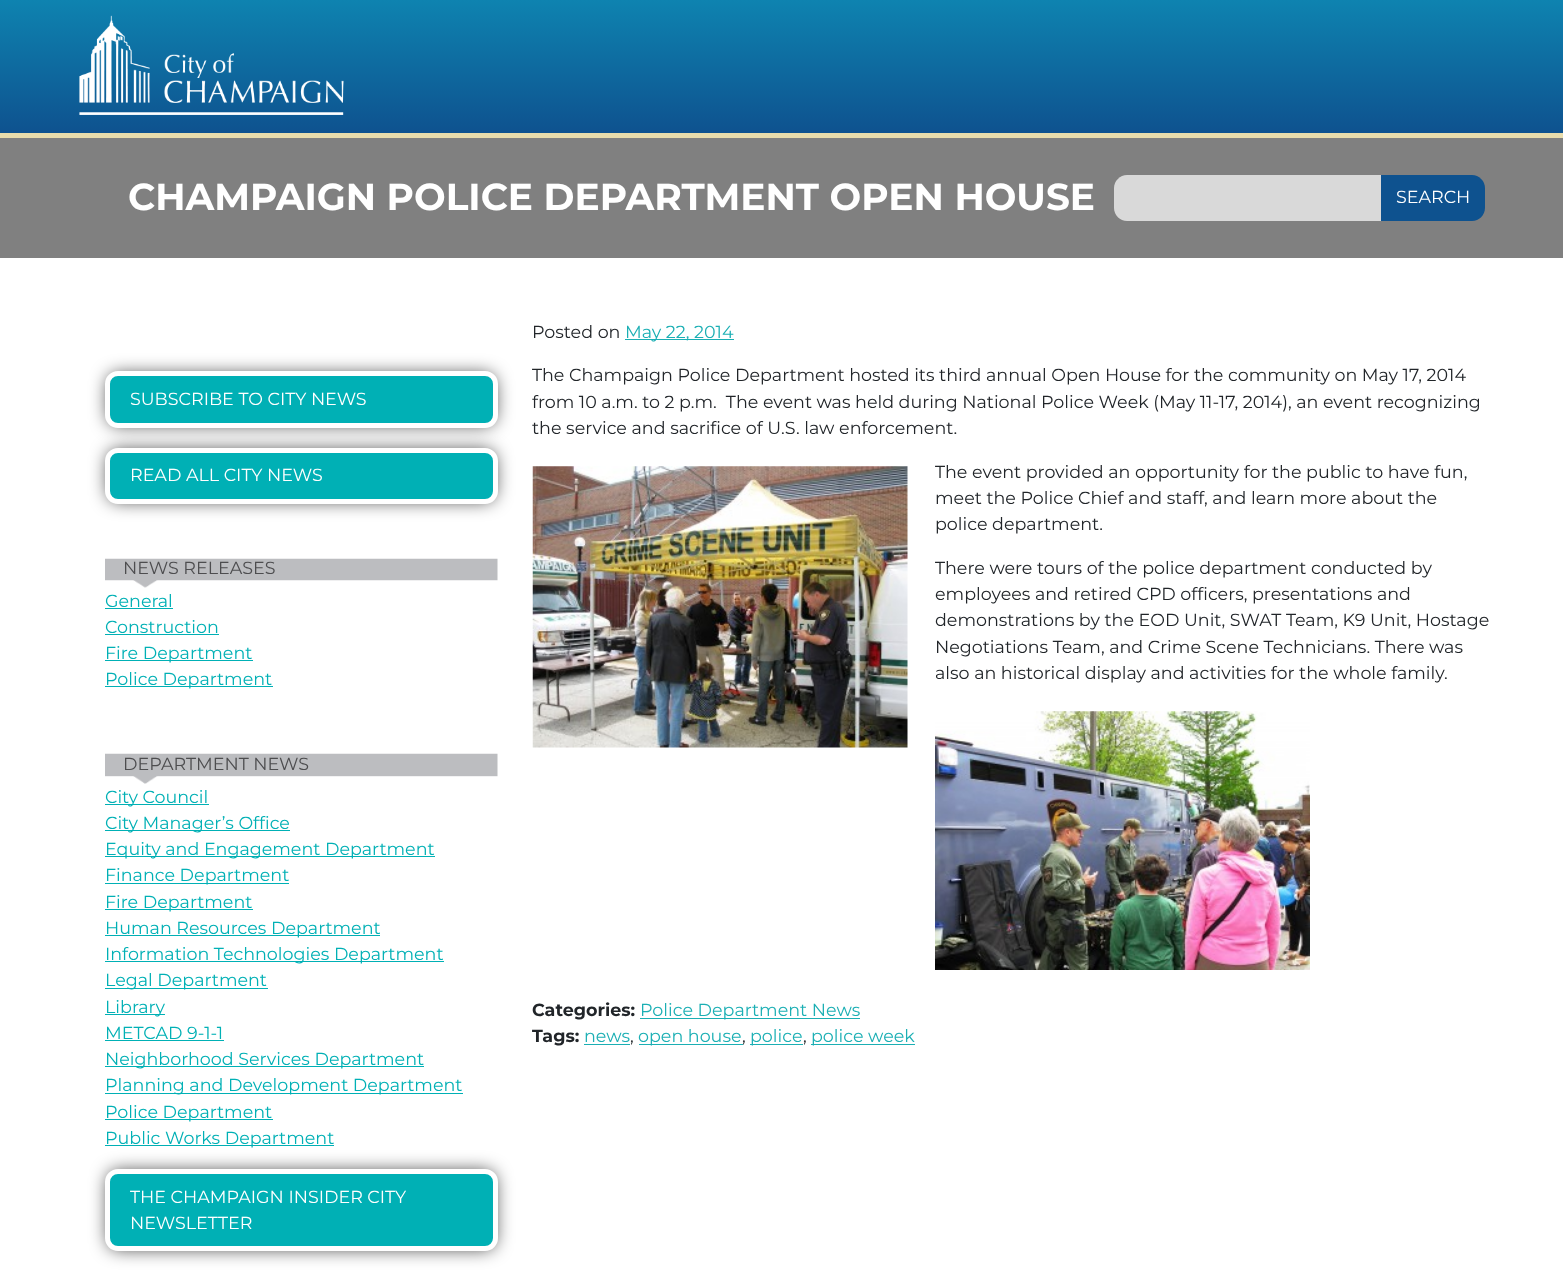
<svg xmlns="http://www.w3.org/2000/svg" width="1563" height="1284">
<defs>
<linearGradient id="g1" gradientUnits="userSpaceOnUse" x1="782" y1="0" x2="782" y2="133"><stop offset="0" stop-color="#0e83b0"/><stop offset="1" stop-color="#0e528f"/></linearGradient>
</defs>
<rect width="100%" height="100%" fill="#fff"/>
<rect width="1563" height="133" fill="url(#g1)"/>
<rect y="133" width="1563" height="5" fill="#e8dcac"/>
<image x="79" y="15" width="265" height="100" href="media/1.png"/>
<rect y="138" width="1563" height="120" fill="#808080"/>
<text x="128" y="210" style="font-family:Montserrat;font-size:37.5px;font-weight:bold;fill:#fff">CHAMPAIGN POLICE DEPARTMENT OPEN HOUSE</text>
<path d="M1127 175h254v46h-254c-7 0-13-6-13-13v-20c0-7 6-13 13-13z" fill="#d9d9d9"/>
<path d="M1381 175h91c7 0 13 6 13 13v20c0 7-6 13-13 13h-91z" fill="#0e528f"/>
<text x="1396" y="203" style="font-family:Montserrat;font-size:17.5px;fill:#fff">SEARCH</text>
<rect x="108" y="374" width="387" height="51" rx="10" fill="#000000bf" filter="blur(9px)"/>
<rect x="107.5" y="373.5" width="388" height="52" rx="10.5" fill="#00b0b5" stroke="#fff" stroke-width="5"/>
<text x="130" y="405" style="font-family:Montserrat;font-size:17.5px;fill:#fff">SUBSCRIBE TO CITY NEWS</text>
<rect x="108" y="450" width="387" height="51" rx="10" fill="#000000bf" filter="blur(9px)"/>
<rect x="107.5" y="450.5" width="388" height="51" rx="10.5" fill="#00b0b5" stroke="#fff" stroke-width="5"/>
<text x="130" y="481" style="font-family:Montserrat;font-size:17.5px;fill:#fff">READ ALL CITY NEWS</text>
<image x="105" y="558" width="393" height="30" href="media/2.png"/>
<text x="123" y="574" style="font-family:Montserrat;font-size:17.5px;fill:#4d4d4f">NEWS RELEASES</text>
<text x="105" y="607" style="font-family:Montserrat;font-size:17.5px;fill:#00b0b5">General</text>
<rect x="105" y="608" width="68" height="1" fill="#00b0b5"/>
<text x="105" y="633" style="font-family:Montserrat;font-size:17.5px;fill:#00b0b5">Construction</text>
<rect x="105" y="634" width="114" height="1" fill="#00b0b5"/>
<rect x="105" y="660" width="148" height="1" fill="#00b0b5"/>
<text x="105" y="659" style="font-family:Montserrat;font-size:17.5px;fill:#00b0b5">Fire Department</text>
<rect x="105" y="686" width="168" height="1" fill="#00b0b5"/>
<text x="105" y="685" style="font-family:Montserrat;font-size:17.5px;fill:#00b0b5">Police Department</text>
<image x="105" y="753" width="393" height="31" href="media/3.png"/>
<text x="123" y="770" style="font-family:Montserrat;font-size:17.5px;fill:#4d4d4f">DEPARTMENT NEWS</text>
<rect x="105" y="804" width="104" height="1" fill="#00b0b5"/>
<text x="105" y="803" style="font-family:Montserrat;font-size:17.5px;fill:#00b0b5">City Council</text>
<rect x="105" y="830" width="185" height="1" fill="#00b0b5"/>
<text x="105" y="829" style="font-family:Montserrat;font-size:17.5px;fill:#00b0b5">City Manager’s Office</text>
<rect x="105" y="856" width="330" height="1" fill="#00b0b5"/>
<text x="105" y="855" style="font-family:Montserrat;font-size:17.5px;fill:#00b0b5">Equity and Engagement Department</text>
<rect x="105" y="883" width="184" height="1" fill="#00b0b5"/>
<text x="105" y="881" style="font-family:Montserrat;font-size:17.5px;fill:#00b0b5">Finance Department</text>
<rect x="105" y="909" width="148" height="1" fill="#00b0b5"/>
<text x="105" y="908" style="font-family:Montserrat;font-size:17.5px;fill:#00b0b5">Fire Department</text>
<rect x="105" y="935" width="275" height="1" fill="#00b0b5"/>
<text x="105" y="934" style="font-family:Montserrat;font-size:17.5px;fill:#00b0b5">Human Resources Department</text>
<rect x="105" y="961" width="339" height="1" fill="#00b0b5"/>
<text x="105" y="960" style="font-family:Montserrat;font-size:17.5px;fill:#00b0b5">Information Technologies Department</text>
<rect x="105" y="988" width="163" height="1" fill="#00b0b5"/>
<text x="105" y="986" style="font-family:Montserrat;font-size:17.5px;fill:#00b0b5">Legal Department</text>
<rect x="105" y="1014" width="60" height="1" fill="#00b0b5"/>
<text x="105" y="1013" style="font-family:Montserrat;font-size:17.5px;fill:#00b0b5">Library</text>
<text x="105" y="1039" style="font-family:Montserrat;font-size:17.5px;fill:#00b0b5">METCAD 9-1-1</text>
<rect x="105" y="1040" width="119" height="1" fill="#00b0b5"/>
<rect x="105" y="1066" width="319" height="1" fill="#00b0b5"/>
<text x="105" y="1065" style="font-family:Montserrat;font-size:17.5px;fill:#00b0b5">Neighborhood Services Department</text>
<rect x="105" y="1093" width="358" height="1" fill="#00b0b5"/>
<text x="105" y="1091" style="font-family:Montserrat;font-size:17.5px;fill:#00b0b5">Planning and Development Department</text>
<rect x="105" y="1119" width="168" height="1" fill="#00b0b5"/>
<text x="105" y="1118" style="font-family:Montserrat;font-size:17.5px;fill:#00b0b5">Police Department</text>
<rect x="108" y="1171" width="387" height="78" rx="10" fill="#000000bf" filter="blur(9px)"/>
<rect x="105" y="1145" width="229" height="1" fill="#00b0b5"/>
<text x="105" y="1144" style="font-family:Montserrat;font-size:17.5px;fill:#00b0b5">Public Works Department</text>
<rect x="107.5" y="1171.5" width="388" height="77" rx="10.5" fill="#00b0b5" stroke="#fff" stroke-width="5"/>
<text x="130" y="1203" style="font-family:Montserrat;font-size:17.5px;fill:#fff">THE CHAMPAIGN INSIDER CITY</text>
<text x="130" y="1229" style="font-family:Montserrat;font-size:17.5px;fill:#fff">NEWSLETTER</text>
<text x="532" y="338" style="font-family:Montserrat;font-size:17.5px;fill:#212529">Posted on</text>
<rect x="625" y="339" width="109" height="1" fill="#1bafb4"/>
<text x="625" y="338" style="font-family:Montserrat;font-size:17.5px;fill:#1bafb4">May 22, 2014</text>
<text x="532" y="381" style="font-family:Montserrat;font-size:17.5px;fill:#212529">The Champaign Police Department hosted its third annual Open House for the community on May 17, 2014</text>
<text x="532" y="408" style="font-family:Montserrat;font-size:17.5px;fill:#212529" xml:space="preserve">from 10 a.m. to 2 p.m.  The event was held during National Police Week (May 11-17, 2014), an event recognizing</text>
<text x="532" y="434" style="font-family:Montserrat;font-size:17.5px;fill:#212529">the service and sacrifice of U.S. law enforcement.</text>
<image x="532" y="466" width="376" height="282" href="media/4.png"/>
<text x="935" y="478" style="font-family:Montserrat;font-size:17.5px;fill:#212529">The event provided an opportunity for the public to have fun,</text>
<text x="935" y="504" style="font-family:Montserrat;font-size:17.5px;fill:#212529">meet the Police Chief and staff, and learn more about the</text>
<text x="935" y="530" style="font-family:Montserrat;font-size:17.5px;fill:#212529">police department.</text>
<text x="935" y="574" style="font-family:Montserrat;font-size:17.5px;fill:#212529">There were tours of the police department conducted by</text>
<text x="935" y="600" style="font-family:Montserrat;font-size:17.5px;fill:#212529">employees and retired CPD officers, presentations and</text>
<text x="935" y="626" style="font-family:Montserrat;font-size:17.5px;fill:#212529">demonstrations by the EOD Unit, SWAT Team, K9 Unit, Hostage</text>
<text x="935" y="653" style="font-family:Montserrat;font-size:17.5px;fill:#212529">Negotiations Team, and Crime Scene Technicians. There was</text>
<text x="935" y="679" style="font-family:Montserrat;font-size:17.5px;fill:#212529">also an historical display and activities for the whole family.</text>
<image x="935" y="711" width="375" height="259" href="media/5.png"/>
<text x="532" y="1016" style="font-family:Montserrat;font-size:17.5px;font-weight:bold;fill:#212529">Categories:</text>
<rect x="640" y="1018" width="220" height="1" fill="#1bafb4"/>
<text x="640" y="1016" style="font-family:Montserrat;font-size:17.5px;fill:#1bafb4">Police Department News</text>
<text x="532" y="1042" style="font-family:Montserrat;font-size:17.5px;font-weight:bold;fill:#212529">Tags:</text>
<text x="584" y="1042" style="font-family:Montserrat;font-size:17.5px;fill:#1bafb4">news</text>
<rect x="584" y="1044" width="46" height="1" fill="#1bafb4"/>
<text x="630" y="1042" style="font-family:Montserrat;font-size:17.5px;fill:#212529">,</text>
<rect x="639" y="1044" width="104" height="1" fill="#1bafb4"/>
<text x="638" y="1042" style="font-family:Montserrat;font-size:17.5px;fill:#1bafb4">open house</text>
<text x="742" y="1042" style="font-family:Montserrat;font-size:17.5px;fill:#212529">,</text>
<rect x="750" y="1044" width="53" height="1" fill="#1bafb4"/>
<text x="750" y="1042" style="font-family:Montserrat;font-size:17.5px;fill:#1bafb4">police</text>
<text x="803" y="1042" style="font-family:Montserrat;font-size:17.5px;fill:#212529">,</text>
<rect x="811" y="1044" width="104" height="1" fill="#1bafb4"/>
<text x="811" y="1042" style="font-family:Montserrat;font-size:17.5px;fill:#1bafb4">police week</text>
</svg>
